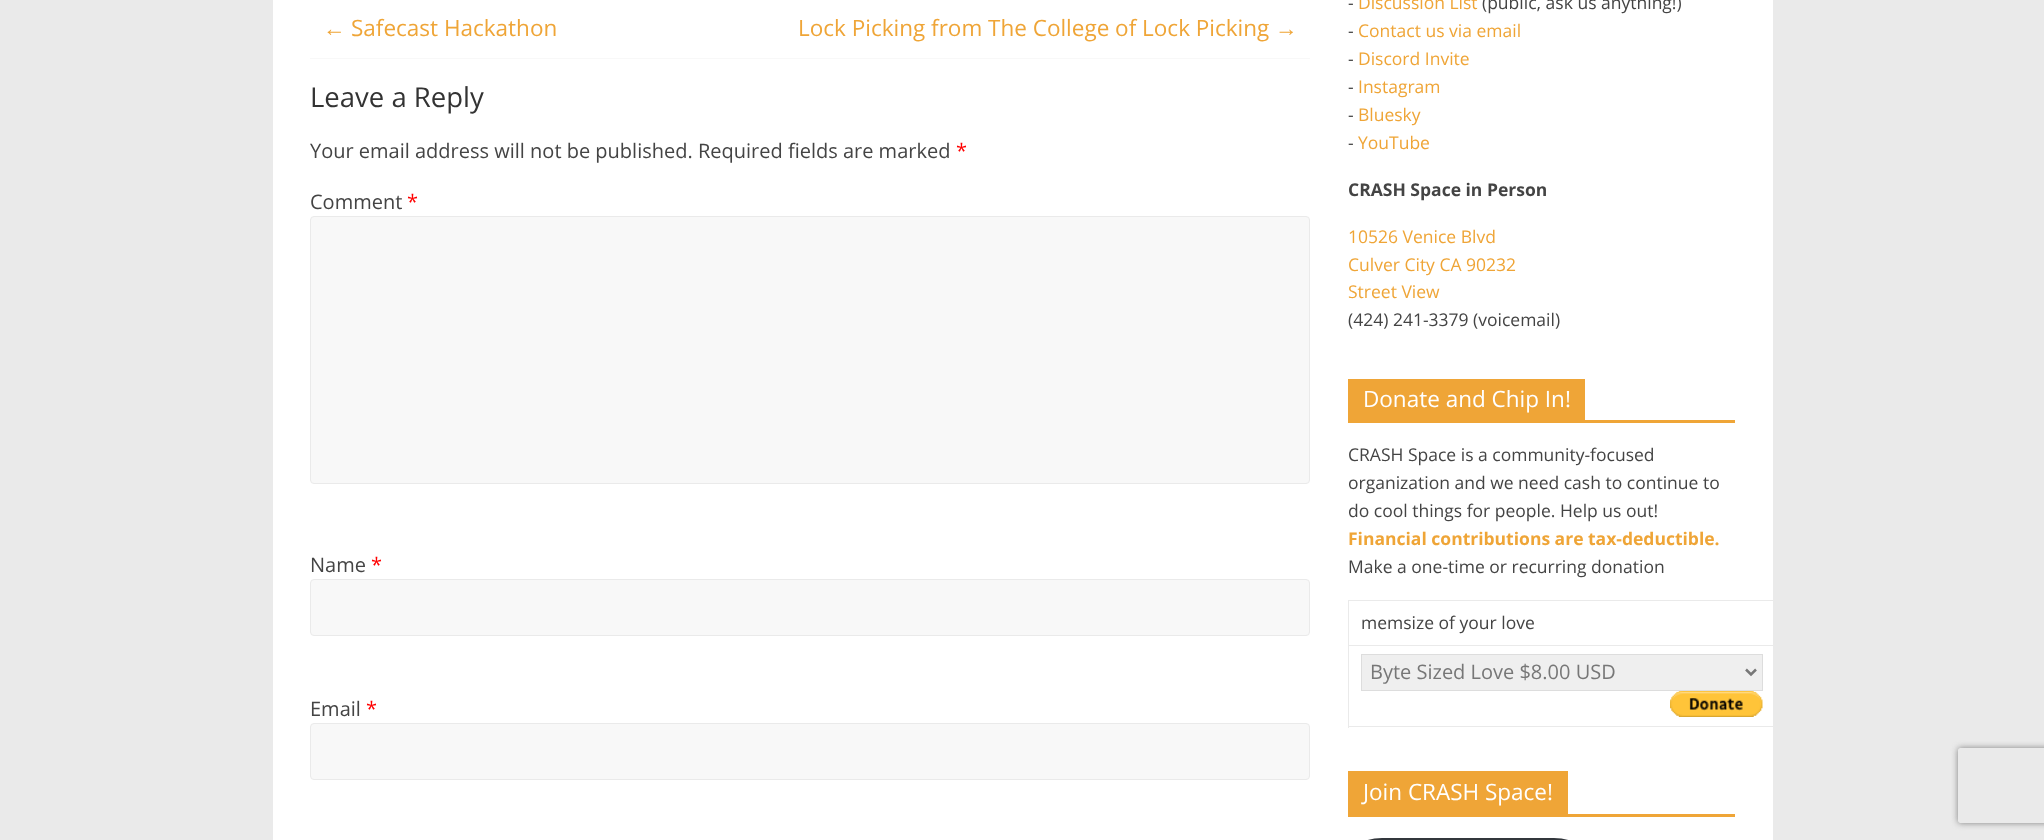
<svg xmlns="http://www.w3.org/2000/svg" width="2044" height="840">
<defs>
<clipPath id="clip1"><path d="M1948 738h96v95h-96zm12.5 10h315c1.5 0 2.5 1 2.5 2.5v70c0 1.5-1 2.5-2.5 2.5h-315c-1.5 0-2.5-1-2.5-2.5v-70c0-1.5 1-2.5 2.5-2.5z" clip-rule="evenodd"/></clipPath>
</defs>
<rect width="100%" height="100%" fill="#eaeaea"/>
<rect x="273" width="1500" height="840" fill="#fff"/>
<text x="323" y="36" style="font-family:Liberation Serif;font-size:22.5px;fill:#efa537">←</text>
<text x="351" y="36" style="font-family:Open Sans;font-size:22.5px;fill:#efa537">Safecast Hackathon</text>
<text x="798" y="36" style="font-family:Open Sans;font-size:22.5px;fill:#efa537">Lock Picking from The College of Lock Picking</text>
<text x="1275" y="36" style="font-family:Liberation Serif;font-size:22.5px;fill:#efa537">→</text>
<rect x="310" y="58" width="1000" height="1" fill="#f8f8f8"/>
<text x="310" y="107" style="font-family:Open Sans;font-size:27.5px;fill:#333">Leave a Reply</text>
<text x="310" y="158" style="font-family:Open Sans;font-size:20px;fill:#444">Your email address will not be published. Required fields are marked</text>
<text x="956" y="158" style="font-family:Open Sans;font-size:20px;fill:#f00">*</text>
<text x="310" y="209" style="font-family:Open Sans;font-size:20px;fill:#444">Comment</text>
<text x="407" y="209" style="font-family:Open Sans;font-size:20px;fill:#f00">*</text>
<rect x="310.5" y="216.5" width="999" height="267" rx="3.5" fill="#f8f8f8" stroke="#eaeaea"/>
<text x="310" y="572" style="font-family:Open Sans;font-size:20px;fill:#444">Name</text>
<text x="371" y="572" style="font-family:Open Sans;font-size:20px;fill:#f00">*</text>
<rect x="310.5" y="579.5" width="999" height="56" rx="3.5" fill="#f8f8f8" stroke="#eaeaea"/>
<text x="310" y="716" style="font-family:Open Sans;font-size:20px;fill:#444">Email</text>
<text x="366" y="716" style="font-family:Open Sans;font-size:20px;fill:#f00">*</text>
<rect x="310.5" y="723.5" width="999" height="56" rx="3.5" fill="#f8f8f8" stroke="#eaeaea"/>
<text x="1348" y="9" style="font-family:Open Sans;font-size:17.5px;fill:#444">-</text>
<text x="1358" y="9" style="font-family:Open Sans;font-size:17.5px;fill:#efa537">Discussion List</text>
<text x="1482" y="9" style="font-family:Open Sans;font-size:17.5px;fill:#444">(public, ask us anything!)</text>
<text x="1348" y="37" style="font-family:Open Sans;font-size:17.5px;fill:#444">-</text>
<text x="1358" y="37" style="font-family:Open Sans;font-size:17.5px;fill:#efa537">Contact us via email</text>
<text x="1348" y="65" style="font-family:Open Sans;font-size:17.5px;fill:#444">-</text>
<text x="1358" y="65" style="font-family:Open Sans;font-size:17.5px;fill:#efa537">Discord Invite</text>
<text x="1348" y="93" style="font-family:Open Sans;font-size:17.5px;fill:#444">-</text>
<text x="1358" y="93" style="font-family:Open Sans;font-size:17.5px;fill:#efa537">Instagram</text>
<text x="1348" y="121" style="font-family:Open Sans;font-size:17.5px;fill:#444">-</text>
<text x="1358" y="121" style="font-family:Open Sans;font-size:17.5px;fill:#efa537">Bluesky</text>
<text x="1348" y="149" style="font-family:Open Sans;font-size:17.5px;fill:#444">-</text>
<text x="1358" y="149" style="font-family:Open Sans;font-size:17.5px;fill:#efa537">YouTube</text>
<text x="1348" y="196" style="font-family:Open Sans;font-size:17.5px;font-weight:bold;fill:#444">CRASH Space in Person</text>
<text x="1348" y="243" style="font-family:Open Sans;font-size:17.5px;fill:#efa537">10526 Venice Blvd</text>
<text x="1348" y="271" style="font-family:Open Sans;font-size:17.5px;fill:#efa537">Culver City CA 90232</text>
<text x="1348" y="298" style="font-family:Open Sans;font-size:17.5px;fill:#efa537">Street View</text>
<text x="1348" y="326" style="font-family:Open Sans;font-size:17.5px;fill:#444">(424) 241-3379 (voicemail)</text>
<rect x="1348" y="420" width="387" height="3" fill="#efa537"/>
<rect x="1348" y="379" width="237" height="41" fill="#efa537"/>
<text x="1363" y="407" style="font-family:Open Sans;font-size:22.5px;fill:#fff">Donate and Chip In!</text>
<text x="1348" y="461" style="font-family:Open Sans;font-size:17.5px;fill:#444">CRASH Space is a community-focused</text>
<text x="1348" y="489" style="font-family:Open Sans;font-size:17.5px;fill:#444">organization and we need cash to continue to</text>
<text x="1348" y="517" style="font-family:Open Sans;font-size:17.5px;fill:#444">do cool things for people. Help us out!</text>
<text x="1348" y="545" style="font-family:Open Sans;font-size:17.5px;font-weight:bold;fill:#efa537">Financial contributions are tax-deductible.</text>
<text x="1348" y="573" style="font-family:Open Sans;font-size:17.5px;fill:#444">Make a one-time or recurring donation</text>
<rect x="1348" y="600" width="428" height="1" fill="#eaeaea"/>
<rect x="1348" y="645" width="428" height="1" fill="#eaeaea"/>
<rect x="1348" y="726" width="428" height="1" fill="#eaeaea"/>
<rect x="1348" y="645" width="1" height="83" fill="#eaeaea"/>
<rect x="1348" y="600" width="1" height="46" fill="#eaeaea"/>
<text x="1361" y="629" style="font-family:Open Sans;font-size:17.5px;fill:#444">memsize of your love</text>
<rect x="1361.5" y="654.5" width="401" height="36" fill="#efefef" stroke="#ddd"/>
<path d="M1746 669.5l5 5l5-5" fill="none" stroke="#777" stroke-width="2.5"/>
<text x="1370" y="679" style="font-family:Open Sans;font-size:20px;fill:#777">Byte Sized Love $8.00 USD</text>
<image x="1670" y="691" width="93" height="26" href="media/1.png"/>
<rect x="1348" y="814" width="387" height="3" fill="#efa537"/>
<rect x="1348" y="771" width="220" height="43" fill="#efa537"/>
<text x="1363" y="800" style="font-family:Open Sans;font-size:22.5px;fill:#fff">Join CRASH Space!</text>
<rect x="1349.5" y="836.5" width="237" height="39" rx="32.5" fill="#32373c" stroke="#fff" stroke-width="3"/>
<g clip-path="url(#clip1)">
<rect x="1958" y="748" width="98" height="75" rx="2.5" fill="#808080" filter="blur(3px)"/>
</g>
</svg>
